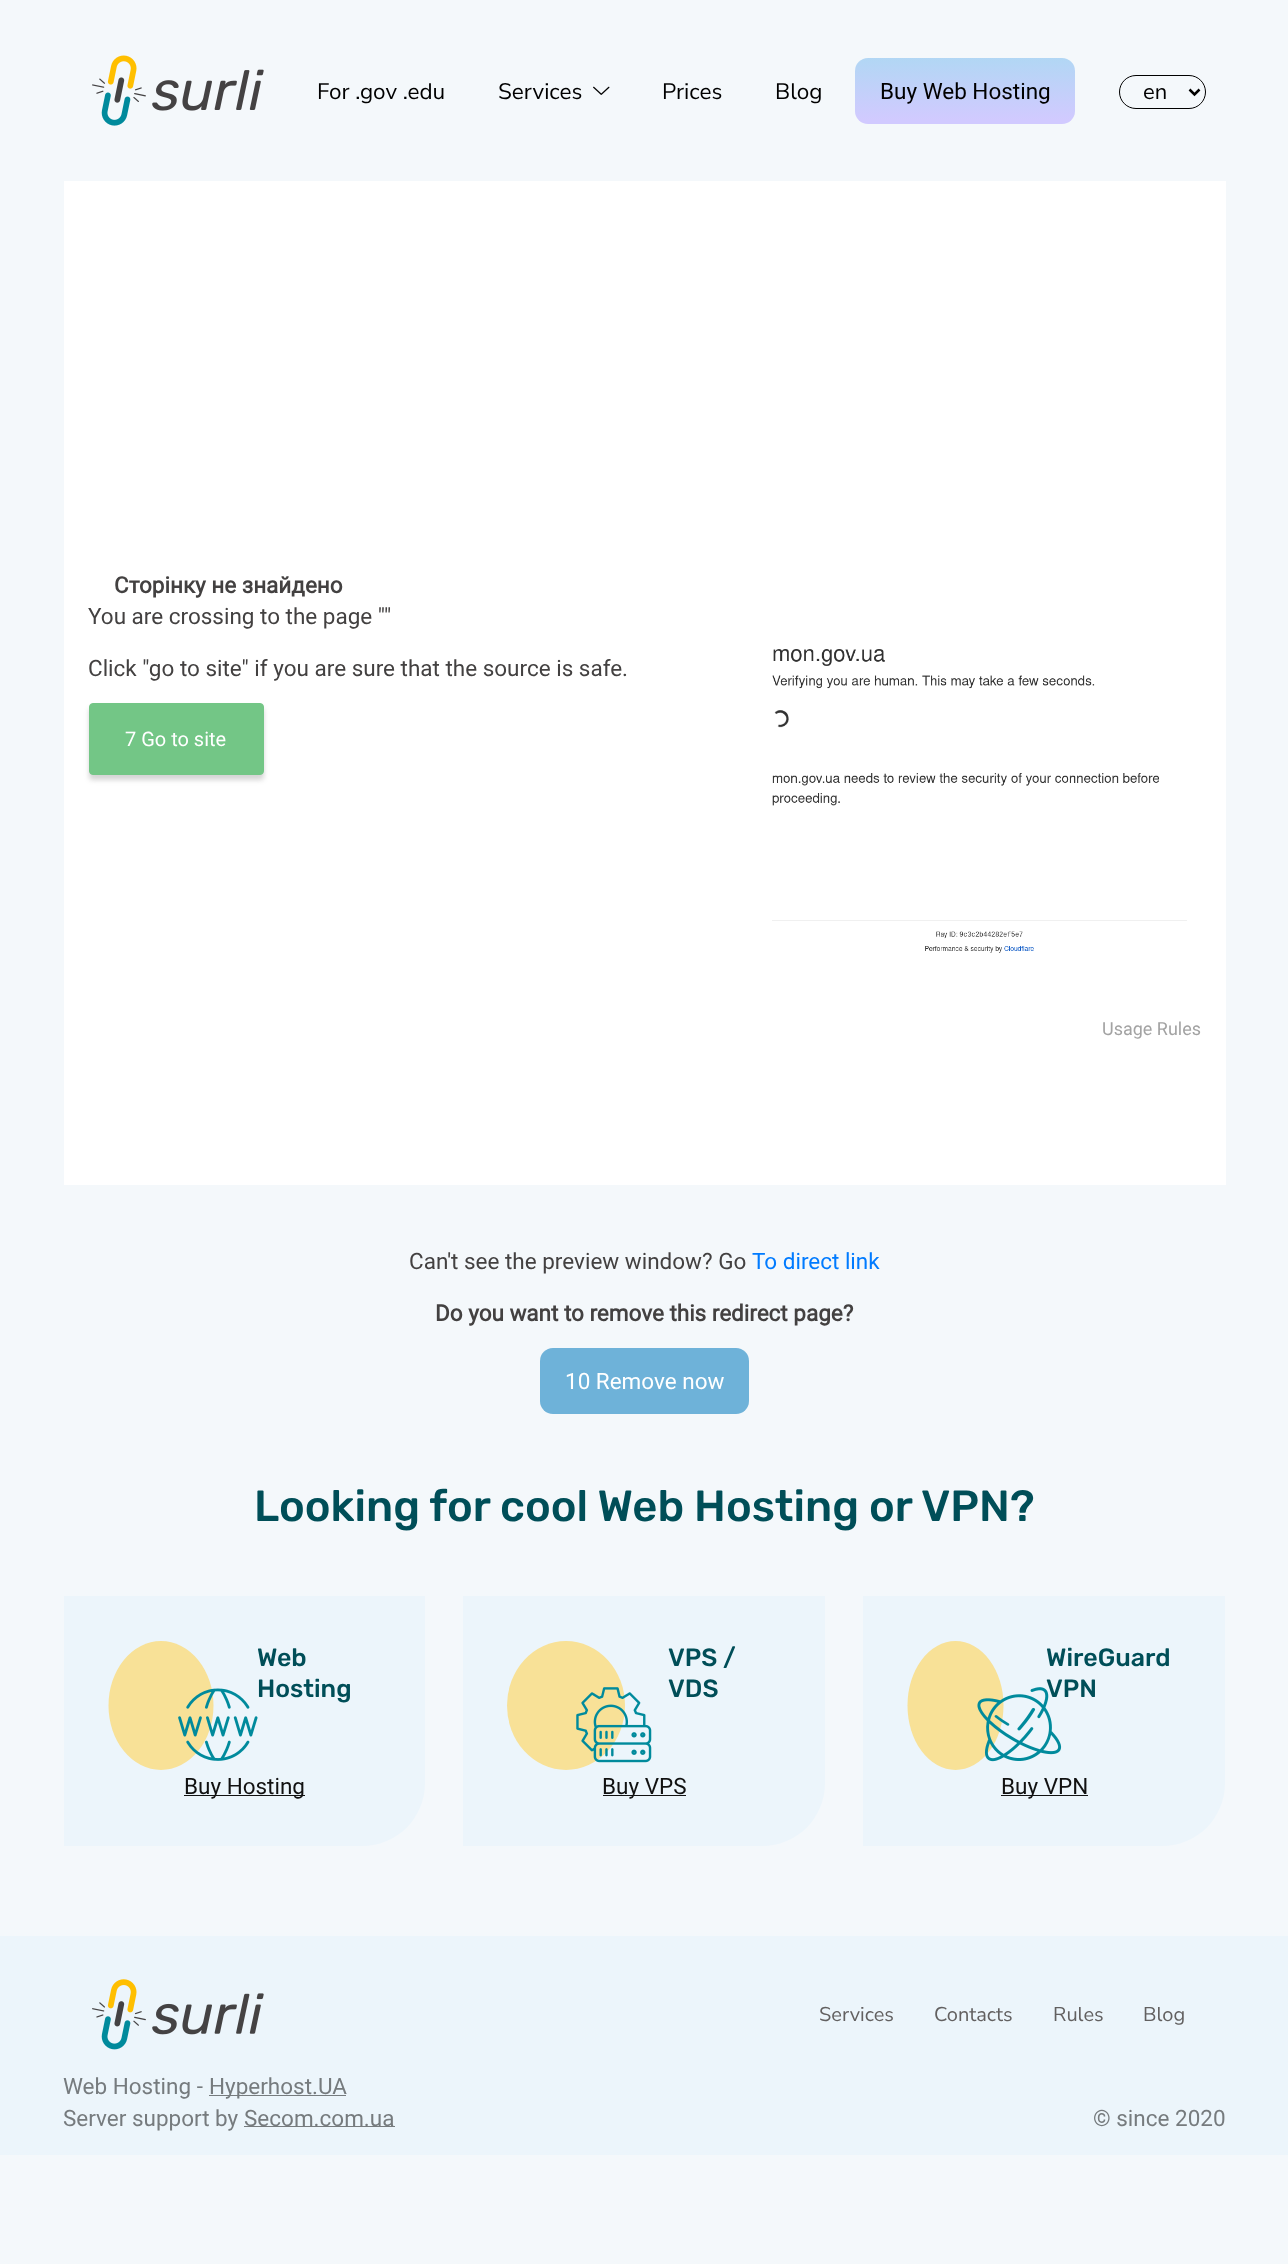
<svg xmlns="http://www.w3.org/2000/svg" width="1288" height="2264">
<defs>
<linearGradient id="g1" gradientUnits="userSpaceOnUse" x1="965" y1="57" x2="965" y2="124"><stop offset="0" stop-color="#b1d7f4"/><stop offset="0.94" stop-color="#d1caff"/></linearGradient>
</defs>
<rect width="100%" height="100%" fill="#f4f8fb"/>
<image x="92" y="55" width="172" height="71" href="media/1.png"/>
<text x="317" y="99" style="font-family:Nunito Sans;font-size:22.5px;fill:#000">For .gov .edu</text>
<text x="498" y="99" style="font-family:Nunito Sans;font-size:22.5px;fill:#000">Services</text>
<image x="593" y="86" width="17" height="9" href="media/2.png"/>
<text x="662" y="99" style="font-family:Nunito Sans;font-size:22.5px;fill:#000">Prices</text>
<text x="775" y="99" style="font-family:Nunito Sans;font-size:22.5px;fill:#000">Blog</text>
<rect x="855" y="58" width="220" height="66" rx="13" fill="url(#g1)"/>
<text x="880" y="99" style="font-family:Roboto;font-size:22.5px;fill:#000">Buy Web Hosting</text>
<rect x="1119.5" y="75.5" width="86" height="33" rx="16.5" fill="none" stroke="#000"/>
<path d="M1189.5 89.5l5 5l5-5" fill="none" stroke="#000" stroke-width="2.5"/>
<text x="1143" y="99" style="font-family:Nunito Sans;font-size:22px;fill:#000">en</text>
<rect x="64" y="181" width="1162" height="1004" fill="#fff"/>
<text x="114" y="593" style="font-family:Roboto;font-size:22.5px;font-weight:bold;fill:#434141">Сторінку не знайдено</text>
<text x="88" y="624" style="font-family:Roboto;font-size:22.5px;fill:#434141">You are crossing to the page "</text>
<text x="384" y="624" style="font-family:Roboto;font-size:22.5px;fill:#434141">"</text>
<text x="88" y="676" style="font-family:Roboto;font-size:22.5px;fill:#434141">Click "go to site" if you are sure that the source is safe.</text>
<rect x="89" y="708" width="175" height="72" rx="4" fill="#59595940" filter="blur(2.5px)"/>
<rect x="89.5" y="703.5" width="174" height="71" rx="3.5" fill="#73c686" stroke="#73c686"/>
<text x="125" y="746" style="font-family:Roboto;font-size:20px;fill:#fff">7 Go to site</text>
<image x="772" y="649" width="415" height="304" href="media/3.png"/>
<text x="1102" y="1035" style="font-family:Roboto;font-size:18px;fill:#a3a3a3">Usage Rules</text>
<text x="409" y="1269" style="font-family:Roboto;font-size:22.5px;fill:#434141">Can't see the preview window? Go</text>
<text x="752" y="1269" style="font-family:Roboto;font-size:22.5px;fill:#007bff">To direct link</text>
<text x="435" y="1321" style="font-family:Roboto;font-size:22.5px;font-weight:bold;fill:#434141">Do you want to remove this redirect page?</text>
<rect x="540" y="1348" width="209" height="66" rx="13" fill="#6eb2d9"/>
<text x="565" y="1389" style="font-family:Roboto;font-size:22.5px;fill:#fff">10 Remove now</text>
<text x="254" y="1521" style="font-family:Rubik;font-size:43.6px;font-weight:500;fill:#004e58">Looking for cool Web Hosting or VPN?</text>
<path d="M64 1596h361v187c0 35-28 63-63 63h-298z" fill="#ecf5fb"/>
<ellipse cx="161" cy="1705.5" rx="52.5" ry="64.5" fill="#f8e197"/>
<text x="257" y="1666" style="font-family:Rubik;font-size:25px;font-weight:500;fill:#004e58">Web</text>
<text x="257" y="1697" style="font-family:Rubik;font-size:25px;font-weight:500;fill:#004e58">Hosting</text>
<image x="178" y="1688" width="80" height="73" href="media/4.png"/>
<rect x="184" y="1795" width="121" height="1" fill="#111"/>
<text x="184" y="1794" style="font-family:Roboto;font-size:22.5px;fill:#111">Buy Hosting</text>
<path d="M463 1596h362v187c0 35-28 63-63 63h-299z" fill="#ecf5fb"/>
<ellipse cx="566" cy="1705.5" rx="59" ry="64.5" fill="#f8e197"/>
<text x="668" y="1666" style="font-family:Rubik;font-size:25px;font-weight:500;fill:#004e58">VPS /</text>
<text x="668" y="1697" style="font-family:Rubik;font-size:25px;font-weight:500;fill:#004e58">VDS</text>
<image x="576" y="1687" width="76" height="76" href="media/5.png"/>
<rect x="603" y="1795" width="83" height="1" fill="#111"/>
<text x="602" y="1794" style="font-family:Roboto;font-size:22.5px;fill:#111">Buy VPS</text>
<path d="M863 1596h362v187c0 35-28 63-63 63h-299z" fill="#ecf5fb"/>
<ellipse cx="955.5" cy="1705.5" rx="48" ry="64.5" fill="#f8e197"/>
<text x="1046" y="1666" style="font-family:Rubik;font-size:25px;font-weight:500;fill:#004e58">WireGuard</text>
<text x="1046" y="1697" style="font-family:Rubik;font-size:25px;font-weight:500;fill:#004e58">VPN</text>
<image x="977" y="1687" width="85" height="75" href="media/6.png"/>
<rect x="1001" y="1795" width="87" height="1" fill="#111"/>
<text x="1001" y="1794" style="font-family:Roboto;font-size:22.5px;fill:#111">Buy VPN</text>
<rect y="1936" width="1288" height="219" fill="#ecf5fb"/>
<image x="92" y="1979" width="172" height="71" href="media/7.png"/>
<text x="819" y="2021" style="font-family:Nunito Sans;font-size:20px;fill:#626060">Services</text>
<text x="934" y="2021" style="font-family:Nunito Sans;font-size:20px;fill:#626060">Contacts</text>
<text x="1053" y="2021" style="font-family:Nunito Sans;font-size:20px;fill:#626060">Rules</text>
<text x="1143" y="2021" style="font-family:Nunito Sans;font-size:20px;fill:#626060">Blog</text>
<text x="63" y="2094" style="font-family:Roboto;font-size:22.5px;fill:#767b7e">Web Hosting -</text>
<rect x="209" y="2095" width="137" height="1" fill="#767b7e"/>
<text x="209" y="2094" style="font-family:Roboto;font-size:22.5px;fill:#767b7e">Hyperhost.UA</text>
<text x="63" y="2126" style="font-family:Roboto;font-size:22.5px;fill:#767b7e">Server support by</text>
<rect x="244" y="2126" width="151" height="1" fill="#767b7e"/>
<text x="244" y="2126" style="font-family:Roboto;font-size:22.5px;fill:#767b7e">Secom.com.ua</text>
<text x="1093" y="2126" style="font-family:Roboto;font-size:22.5px;fill:#767b7e">© since 2020</text>
</svg>
